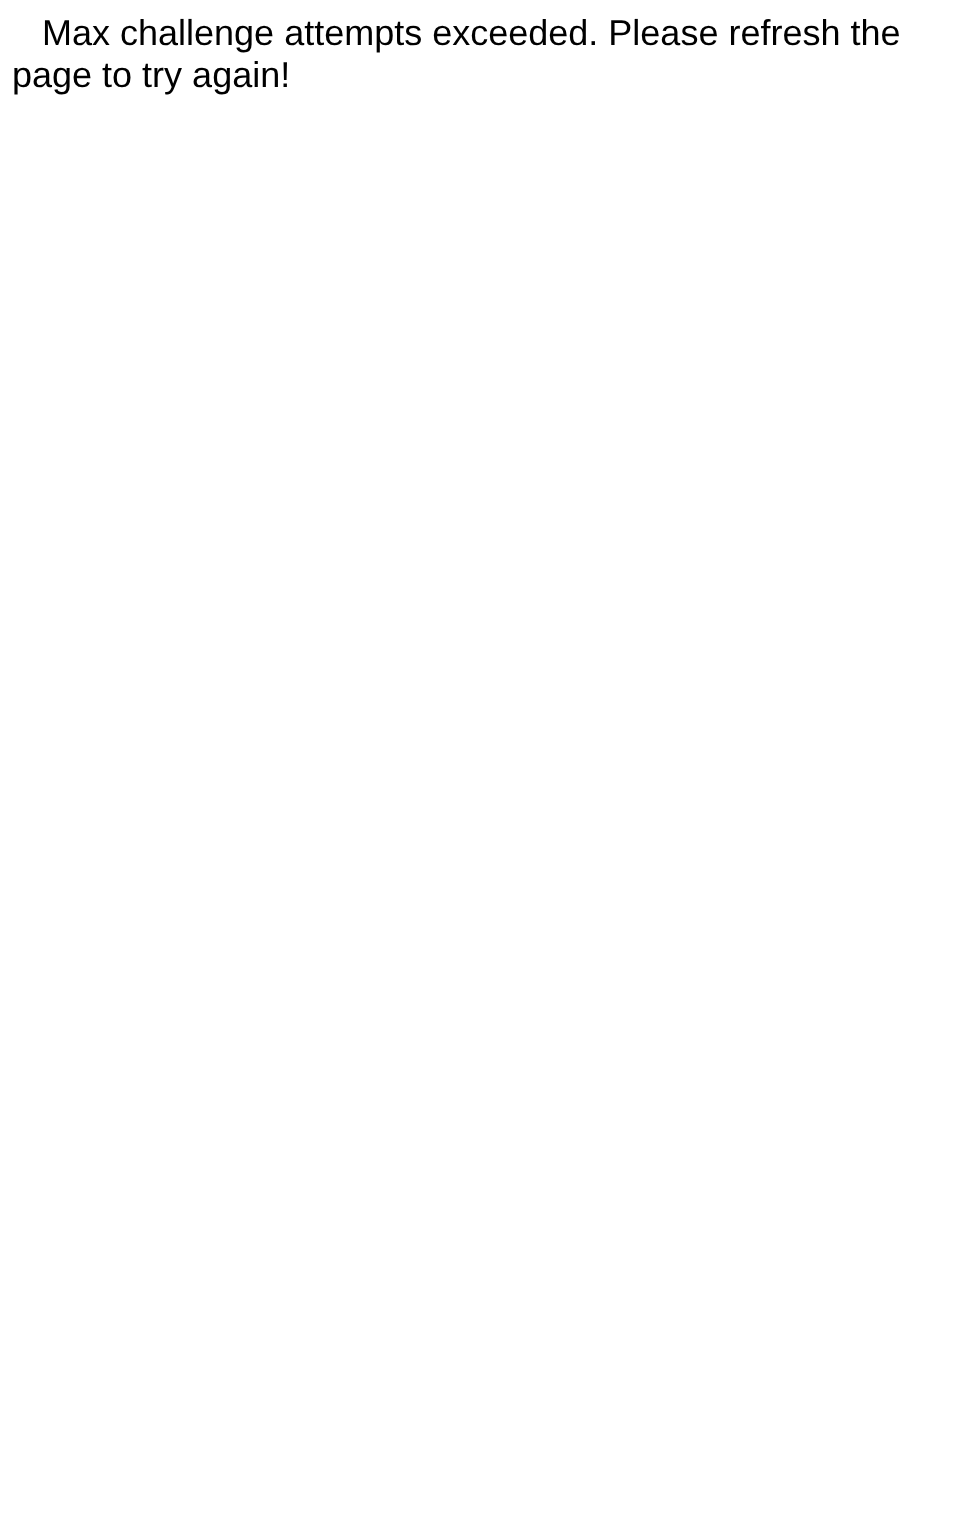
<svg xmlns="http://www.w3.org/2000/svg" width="962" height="1528">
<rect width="100%" height="100%" fill="#fff"/>
<text x="42" y="45" style="font-family:Liberation Sans;font-size:36px;fill:#000">Max challenge attempts exceeded. Please refresh the</text>
<text x="12" y="87" style="font-family:Liberation Sans;font-size:36px;fill:#000">page to try again!</text>
</svg>
